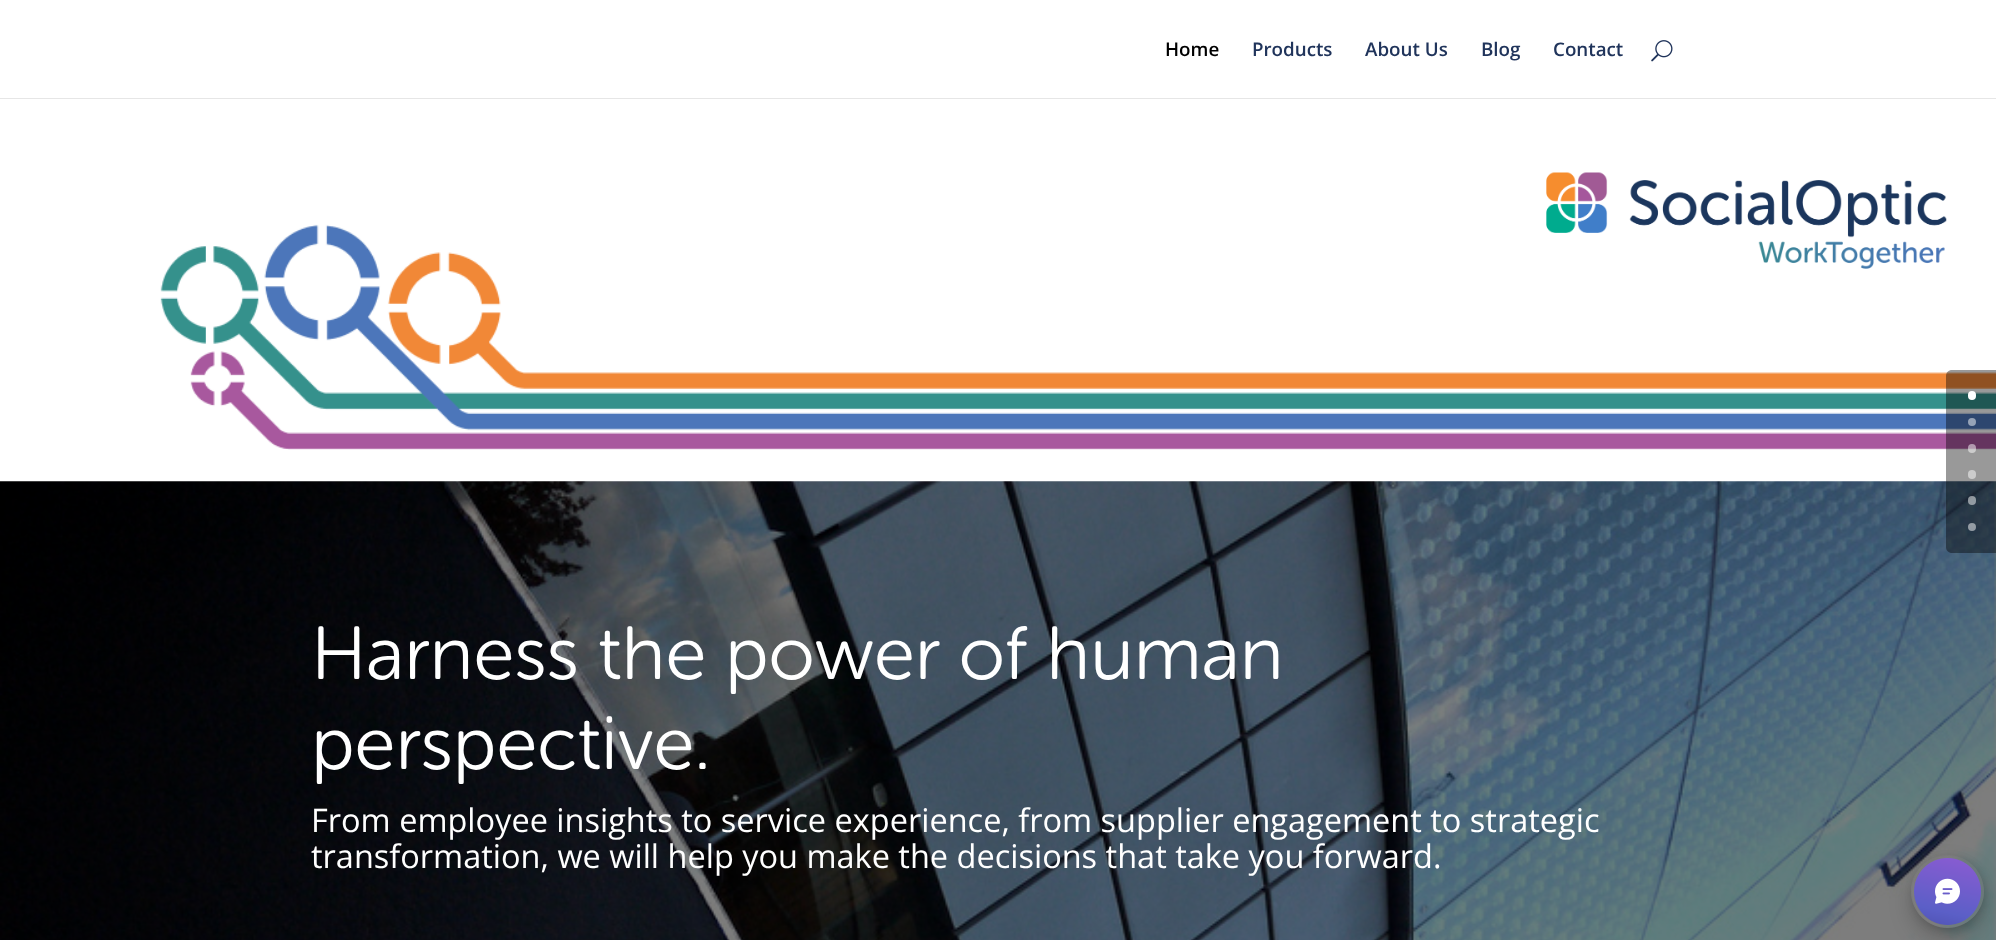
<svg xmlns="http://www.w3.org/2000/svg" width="1996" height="940">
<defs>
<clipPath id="clip1"><path d="M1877 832h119v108h-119zm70.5 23c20 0 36.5 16.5 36.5 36.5c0 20-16.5 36.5-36.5 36.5c-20 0-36.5-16.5-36.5-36.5c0-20 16.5-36.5 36.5-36.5z" clip-rule="evenodd"/></clipPath>
<clipPath id="clip2"><path d="M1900 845h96v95h-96zm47.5 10c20 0 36.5 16.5 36.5 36.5c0 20-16.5 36.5-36.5 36.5c-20 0-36.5-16.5-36.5-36.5c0-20 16.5-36.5 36.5-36.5z" clip-rule="evenodd"/></clipPath>
</defs>
<rect width="100%" height="100%" fill="#fff"/>
<rect y="98" width="1996" height="1" fill="#e6e6e6"/>
<text x="1165" y="56" style="font-family:Open Sans;font-size:18.75px;font-weight:600;fill:#000">Home</text>
<text x="1252" y="56" style="font-family:Open Sans;font-size:18.75px;font-weight:600;fill:#20345b">Products</text>
<text x="1365" y="56" style="font-family:Open Sans;font-size:18.75px;font-weight:600;fill:#20345b">About Us</text>
<text x="1481" y="56" style="font-family:Open Sans;font-size:18.75px;font-weight:600;fill:#20345b">Blog</text>
<text x="1553" y="56" style="font-family:Open Sans;font-size:18.75px;font-weight:600;fill:#20345b">Contact</text>
<image x="1651" y="40" width="22" height="22" href="media/1.png"/>
<image x="160" y="224" width="1836" height="226" href="media/3.png"/>
<image x="0" y="481" width="1996" height="459" href="media/4.png"/>
<path d="M1952 370h44v183h-44c-3.5 0-6-2.5-6-6v-171c0-3.5 2.5-6 6-6z" fill="#00000066"/>
<rect x="1968" y="391" width="8" height="9" rx="4" fill="#fff"/>
<circle cx="1972" cy="422" r="4" fill="#96a3b7"/>
<rect x="1968" y="444" width="8" height="9" rx="4" fill="#ffffff80"/>
<rect x="1968" y="470" width="8" height="9" rx="4" fill="#ccc"/>
<rect x="1968" y="496" width="8" height="9" rx="4" fill="#ffffff80"/>
<circle cx="1972" cy="527" r="4" fill="#ffffff80"/>
<image x="1546" y="172" width="401" height="97" href="media/2.png"/>
<text x="311" y="679" style="font-family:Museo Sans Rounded;font-size:75px;font-weight:300;fill:#fff">Harness the power of human</text>
<text x="311" y="769" style="font-family:Museo Sans Rounded;font-size:75px;font-weight:300;fill:#fff">perspective.</text>
<text x="311" y="832" style="font-family:Open Sans;font-size:32.5px;fill:#fff">From employee insights to service experience, from supplier engagement to strategic</text>
<text x="311" y="868" style="font-family:Open Sans;font-size:32.5px;fill:#fff">transformation, we will help you make the decisions that take you forward.</text>
<g clip-path="url(#clip1)">
<rect x="1911" y="866" width="73" height="73" rx="36.5" fill="#00000033" filter="blur(11px)"/>
</g>
<g clip-path="url(#clip2)">
<rect x="1913" y="858" width="72" height="72" rx="36" fill="#00000024" filter="blur(4px)"/>
</g>
<circle cx="1947.5" cy="891.5" r="36" fill="none" stroke="#75757566"/>
<image x="1914" y="858" width="69" height="67" href="media/5.png"/>
</svg>
